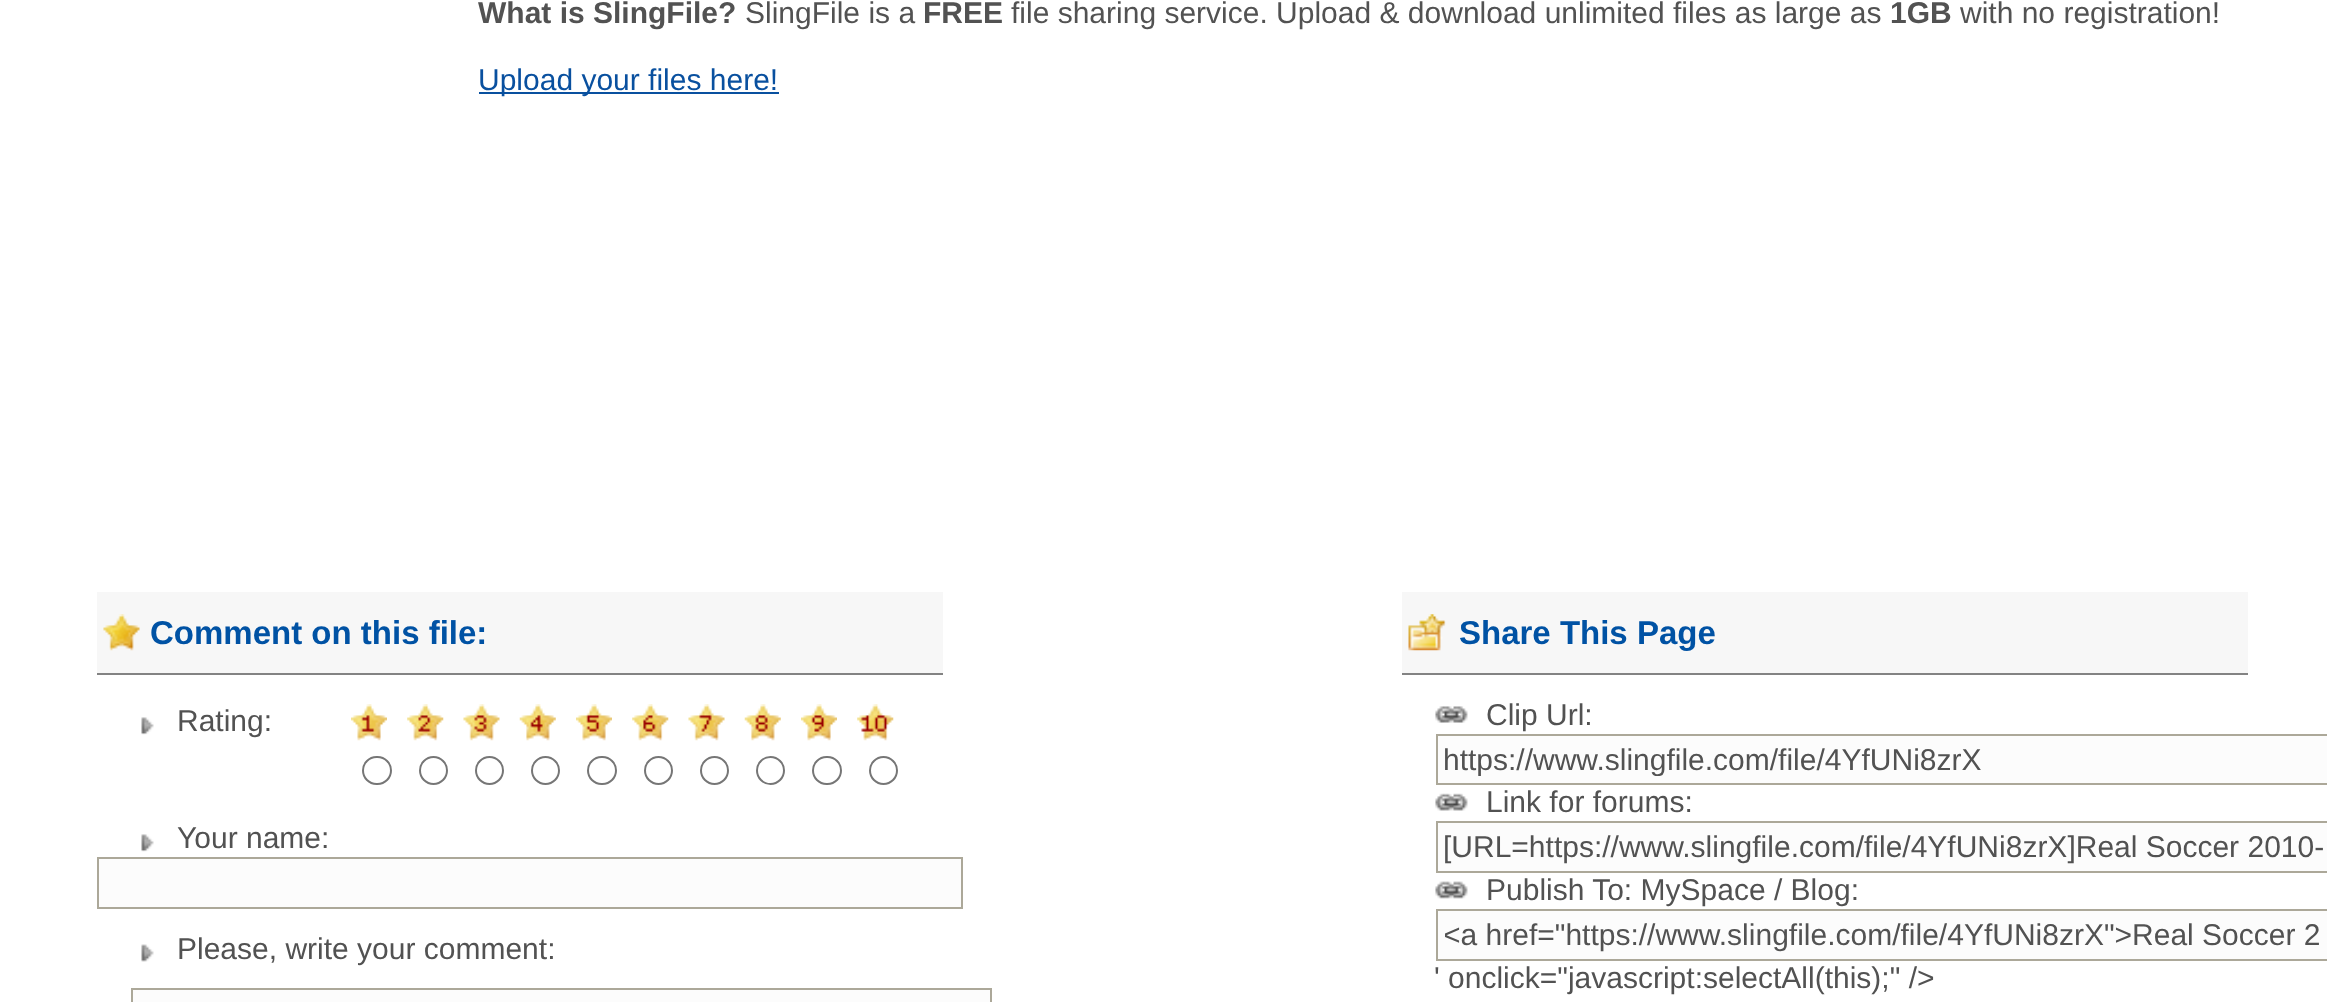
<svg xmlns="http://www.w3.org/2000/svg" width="2327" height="1002">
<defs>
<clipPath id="clip1"><rect x="1445" y="743" width="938" height="33"/></clipPath>
<clipPath id="clip2"><rect x="1445" y="918" width="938" height="34"/></clipPath>
</defs>
<rect width="100%" height="100%" fill="#fff"/>
<text x="478" y="23" style="font-family:Liberation Sans;font-size:30px;font-weight:bold;fill:#525252">What is SlingFile?</text>
<text x="745" y="23" style="font-family:Liberation Sans;font-size:30px;fill:#525252">SlingFile is a</text>
<text x="923" y="23" style="font-family:Liberation Sans;font-size:30px;font-weight:bold;fill:#525252">FREE</text>
<text x="1011" y="23" style="font-family:Liberation Sans;font-size:30px;fill:#525252">file sharing service. Upload &amp; download unlimited files as large as</text>
<text x="1890" y="23" style="font-family:Liberation Sans;font-size:30px;font-weight:bold;fill:#525252">1GB</text>
<text x="1960" y="23" style="font-family:Liberation Sans;font-size:30px;fill:#525252">with no registration!</text>
<rect x="479" y="92" width="300" height="2" fill="#09509f"/>
<text x="478" y="90" style="font-family:Liberation Sans;font-size:30px;fill:#09509f">Upload your files here!</text>
<rect x="97" y="592" width="846" height="81" fill="#f7f7f7"/>
<rect x="97" y="673" width="846" height="2" fill="#838383"/>
<image x="103" y="614" width="37" height="37" href="media/1.png"/>
<text x="150" y="644" style="font-family:Liberation Sans;font-size:33px;font-weight:bold;fill:#0052a4">Comment on this file:</text>
<image x="141" y="717" width="13" height="18" href="media/2.png"/>
<text x="177" y="731" style="font-family:Liberation Sans;font-size:30px;fill:#525252">Rating:</text>
<image x="351" y="704" width="36" height="37" href="media/3.png"/>
<image x="407" y="704" width="37" height="37" href="media/4.png"/>
<image x="463" y="704" width="37" height="37" href="media/5.png"/>
<image x="519" y="704" width="37" height="37" href="media/6.png"/>
<image x="576" y="704" width="36" height="37" href="media/7.png"/>
<image x="632" y="704" width="37" height="37" href="media/8.png"/>
<image x="688" y="704" width="37" height="37" href="media/9.png"/>
<image x="744" y="704" width="37" height="37" href="media/10.png"/>
<image x="801" y="704" width="36" height="37" href="media/11.png"/>
<image x="857" y="704" width="37" height="37" href="media/12.png"/>
<rect x="363" y="757" width="28" height="27" rx="13.5" fill="none" stroke="#767676" stroke-width="2"/>
<circle cx="433.5" cy="770.5" r="13.5" fill="none" stroke="#767676" stroke-width="2"/>
<circle cx="489.5" cy="770.5" r="13.5" fill="none" stroke="#767676" stroke-width="2"/>
<circle cx="545.5" cy="770.5" r="13.5" fill="none" stroke="#767676" stroke-width="2"/>
<rect x="588" y="757" width="28" height="27" rx="13.5" fill="none" stroke="#767676" stroke-width="2"/>
<circle cx="658.5" cy="770.5" r="13.5" fill="none" stroke="#767676" stroke-width="2"/>
<circle cx="714.5" cy="770.5" r="13.5" fill="none" stroke="#767676" stroke-width="2"/>
<circle cx="770.5" cy="770.5" r="13.5" fill="none" stroke="#767676" stroke-width="2"/>
<rect x="813" y="757" width="28" height="27" rx="13.5" fill="none" stroke="#767676" stroke-width="2"/>
<circle cx="883.5" cy="770.5" r="13.5" fill="none" stroke="#767676" stroke-width="2"/>
<image x="141" y="834" width="13" height="18" href="media/2.png"/>
<text x="177" y="848" style="font-family:Liberation Sans;font-size:30px;fill:#525252">Your name:</text>
<rect x="98" y="858" width="864" height="50" fill="#fcfcfc" stroke="#aca899" stroke-width="2"/>
<image x="141" y="944" width="13" height="18" href="media/13.png"/>
<text x="177" y="959" style="font-family:Liberation Sans;font-size:30px;fill:#525252">Please, write your comment:</text>
<rect x="132" y="989" width="859" height="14" fill="#fcfcfc" stroke="#aca899" stroke-width="2"/>
<rect x="1402" y="592" width="846" height="81" fill="#f7f7f7"/>
<rect x="1402" y="673" width="846" height="2" fill="#838383"/>
<image x="1408" y="614" width="38" height="37" href="media/14.png"/>
<text x="1459" y="644" style="font-family:Liberation Sans;font-size:33px;font-weight:bold;fill:#0052a4">Share This Page</text>
<image x="1435" y="706" width="33" height="17" href="media/15.png"/>
<text x="1486" y="725" style="font-family:Liberation Sans;font-size:30px;fill:#525252">Clip Url:</text>
<rect x="1437" y="735" width="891" height="49" fill="#fcfcfc" stroke="#aca899" stroke-width="2"/>
<g clip-path="url(#clip1)">
<text x="1443" y="770" style="font-family:Liberation Sans;font-size:30px;fill:#525252">https://www.slingfile.com/file/4YfUNi8zrX</text>
</g>
<image x="1435" y="793" width="33" height="18" href="media/16.png"/>
<text x="1486" y="812" style="font-family:Liberation Sans;font-size:30px;fill:#525252">Link for forums:</text>
<rect x="1437" y="822" width="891" height="50" fill="#fcfcfc" stroke="#aca899" stroke-width="2"/>
<text x="1443" y="857" style="font-family:Liberation Sans;font-size:30px;fill:#525252">[URL=https://www.slingfile.com/file/4YfUNi8zrX]Real Soccer 2010-</text>
<image x="1435" y="881" width="33" height="18" href="media/17.png"/>
<text x="1486" y="900" style="font-family:Liberation Sans;font-size:30px;fill:#525252">Publish To: MySpace / Blog:</text>
<rect x="1437" y="910" width="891" height="50" fill="#fcfcfc" stroke="#aca899" stroke-width="2"/>
<g clip-path="url(#clip2)">
<text x="1443" y="945" style="font-family:Liberation Sans;font-size:30px;fill:#525252">&lt;a href="https://www.slingfile.com/file/4YfUNi8zrX"&gt;Real Soccer 2</text>
</g>
<text x="1434" y="988" style="font-family:Liberation Sans;font-size:30px;fill:#525252">' onclick="javascript:selectAll(this);" /&gt;</text>
</svg>
